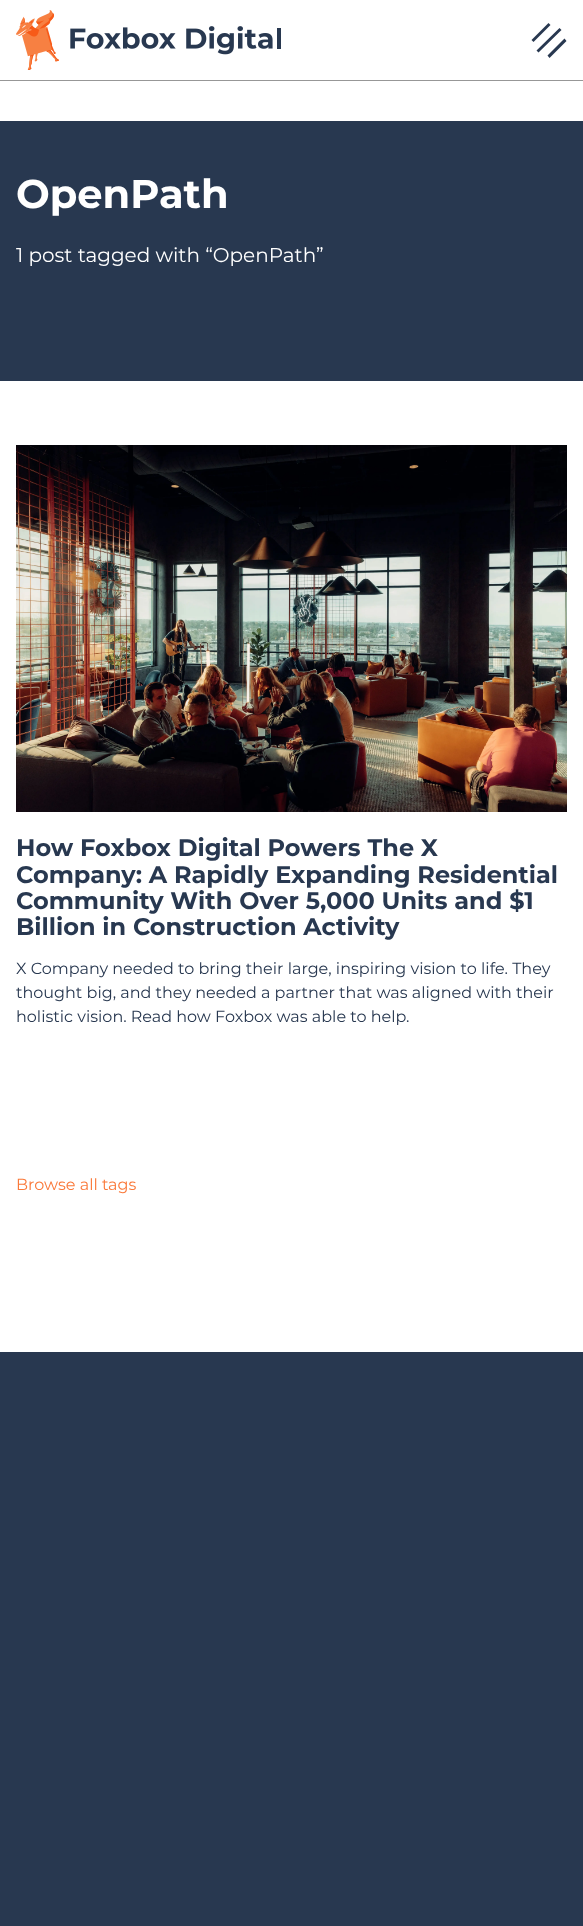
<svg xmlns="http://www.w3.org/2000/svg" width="583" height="1926">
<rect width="100%" height="100%" fill="#fff"/>
<rect y="80" width="583" height="1" fill="#979797"/>
<image x="16" y="10" width="265" height="60" href="media/1.png"/>
<path d="M547.5 55.5l17-17l2 2.5l-17 17zm-11-5l23-22.5l2 2l-23 22.5zm-5-10.5l17-17l2 2l-17 17z" fill="#283850" fill-rule="evenodd"/>
<rect y="121" width="583" height="1805" fill="#283850"/>
<text x="16" y="208" style="font-family:Montserrat;font-size:40px;font-weight:bold;fill:#fff">OpenPath</text>
<text x="16" y="262" style="font-family:Montserrat;font-size:20px;fill:#fff">1 post tagged with “OpenPath”</text>
<rect y="381" width="583" height="971" fill="#fff"/>
<image x="16" y="445" width="551" height="367" href="media/2.png"/>
<text x="16" y="856" style="font-family:Montserrat;font-size:24px;font-weight:bold;fill:#283850">How Foxbox Digital Powers The X</text>
<text x="16" y="883" style="font-family:Montserrat;font-size:24px;font-weight:bold;fill:#283850">Company: A Rapidly Expanding Residential</text>
<text x="16" y="909" style="font-family:Montserrat;font-size:24px;font-weight:bold;fill:#283850">Community With Over 5,000 Units and $1</text>
<text x="16" y="935" style="font-family:Montserrat;font-size:24px;font-weight:bold;fill:#283850">Billion in Construction Activity</text>
<text x="16" y="974" style="font-family:Montserrat;font-size:16px;fill:#283850">X Company needed to bring their large, inspiring vision to life. They</text>
<text x="16" y="998" style="font-family:Montserrat;font-size:16px;fill:#283850">thought big, and they needed a partner that was aligned with their</text>
<text x="16" y="1022" style="font-family:Montserrat;font-size:16px;fill:#283850">holistic vision. Read how Foxbox was able to help.</text>
<text x="16" y="1190" style="font-family:Montserrat;font-size:16px;fill:#fa793a">Browse all tags</text>
</svg>
